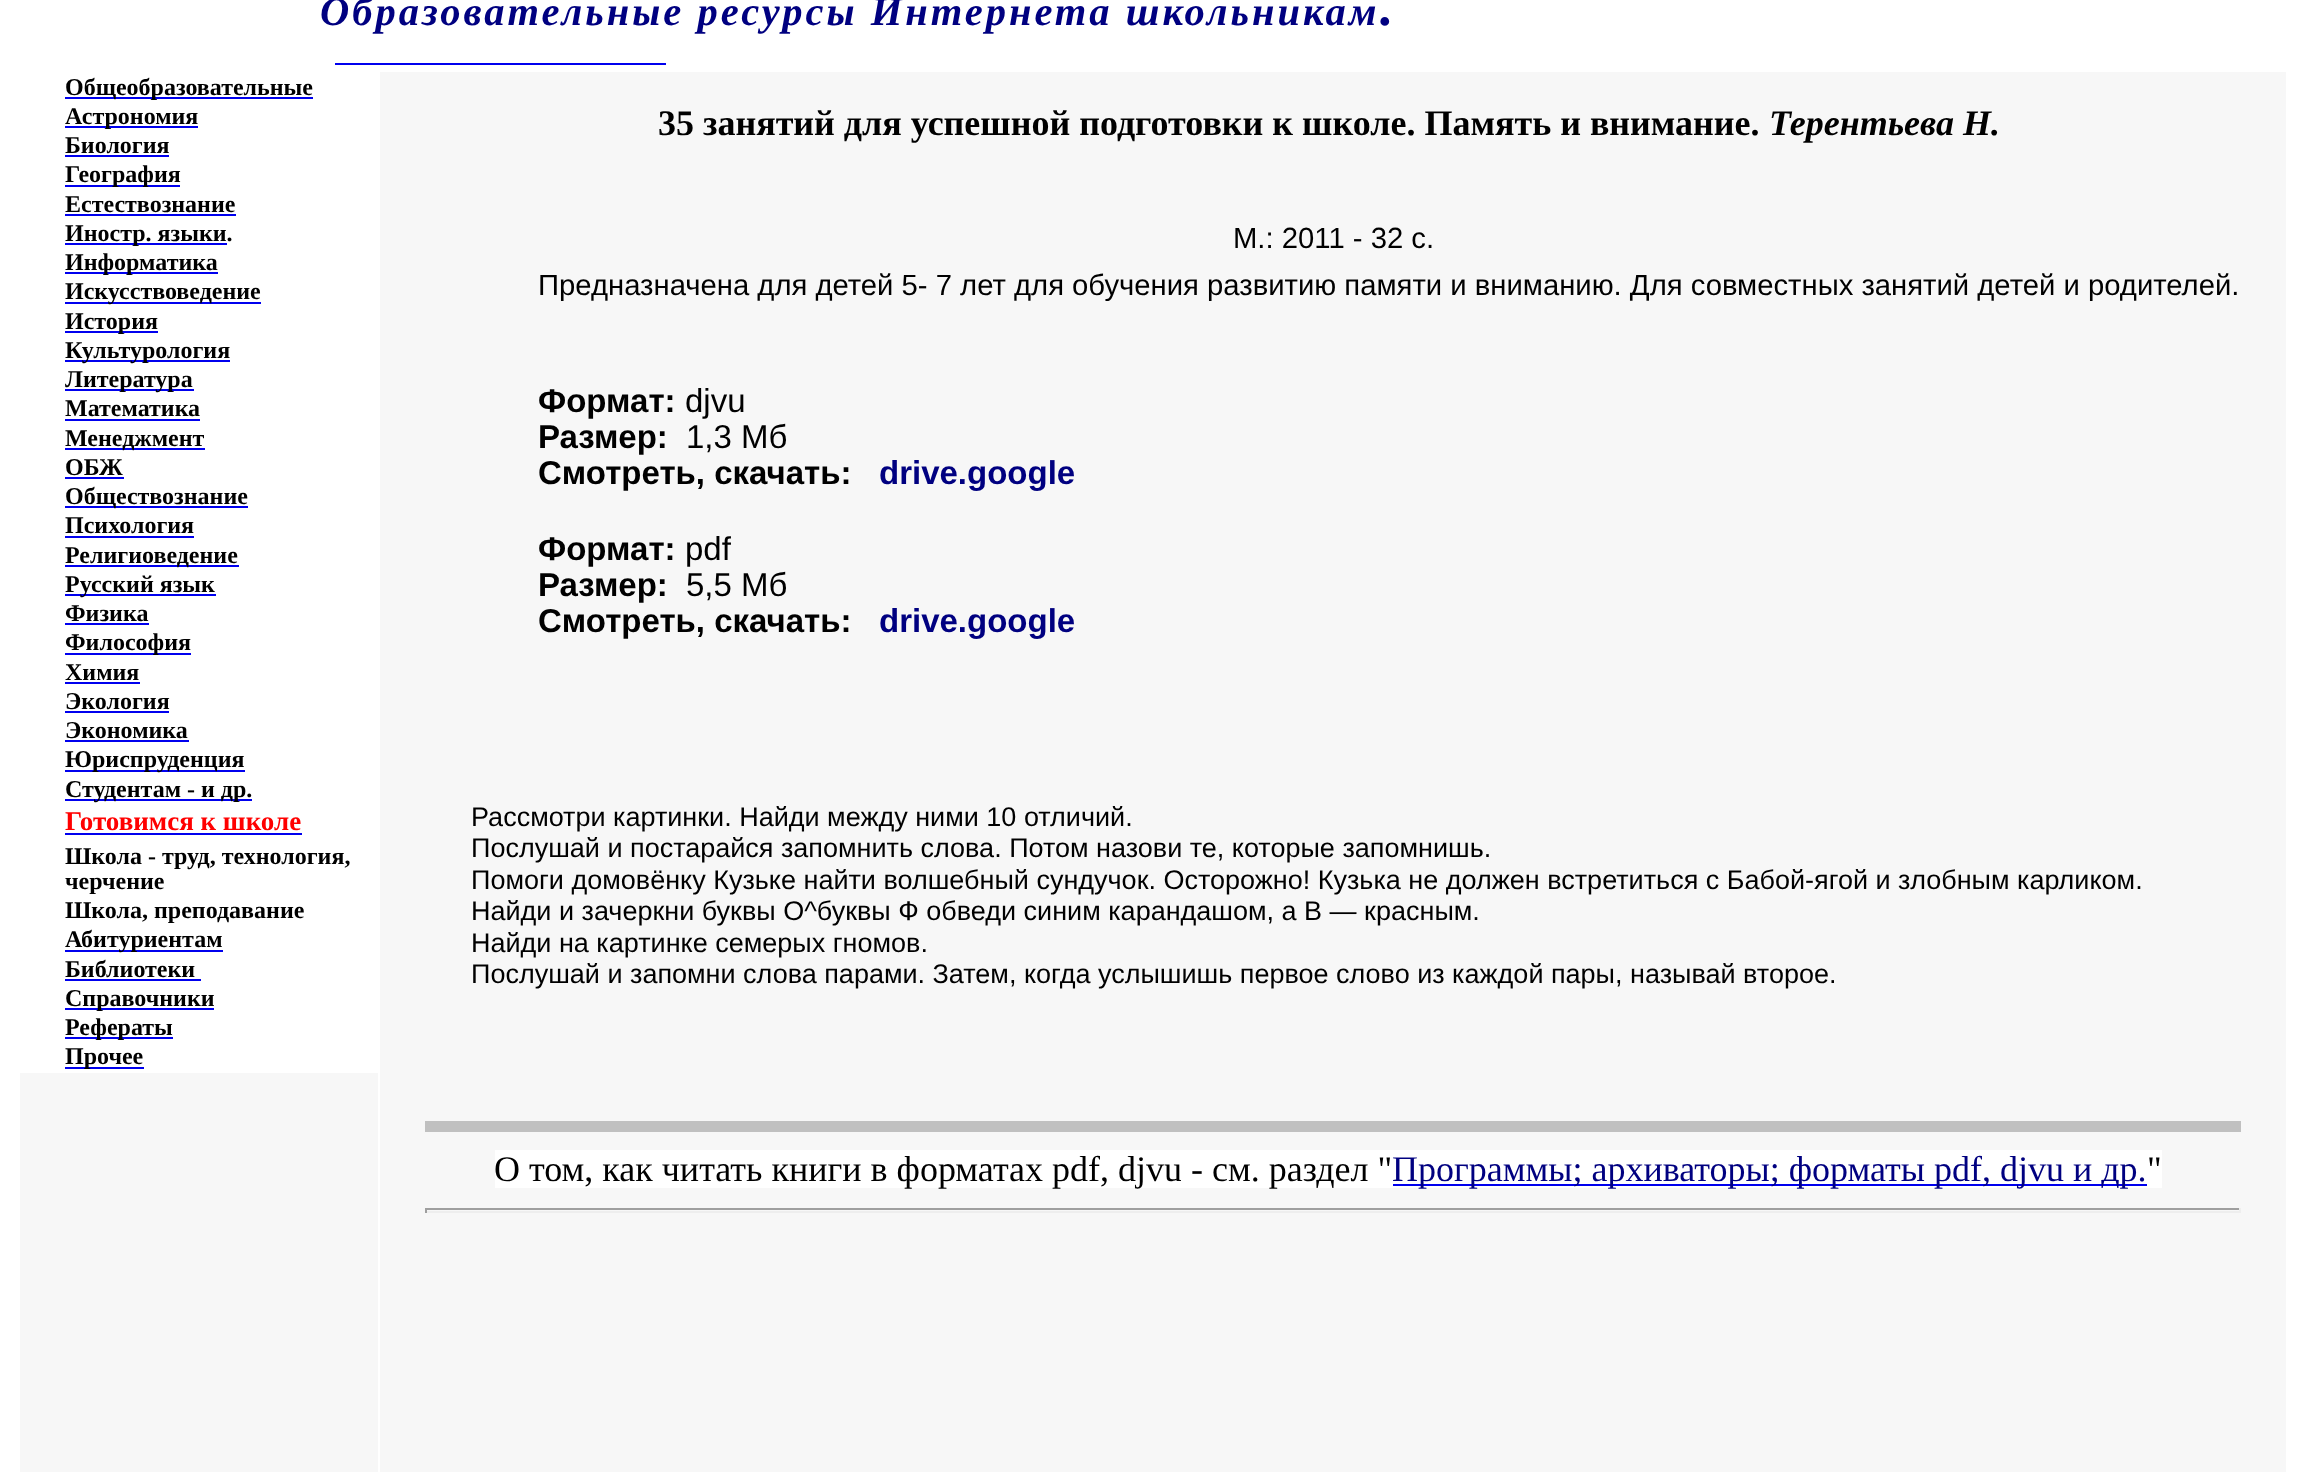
<svg xmlns="http://www.w3.org/2000/svg" width="2304" height="1472">
<rect width="100%" height="100%" fill="#fff"/>
<text x="320" y="25" style="font-family:Liberation Serif;font-size:40.5px;font-weight:bold;font-style:italic;letter-spacing:3px;fill:#000080">Образовательные ресурсы Интернета школьникам</text>
<text x="1380" y="25" style="font-family:Liberation Serif;font-size:54px;font-weight:bold;font-style:italic;letter-spacing:3px;fill:#000080">.</text>
<rect x="335" y="63" width="331" height="2" fill="#00e"/>
<rect x="65" y="97" width="248" height="2" fill="#00e"/>
<text x="65" y="95" style="font-family:Liberation Serif;font-size:24px;font-weight:bold;fill:#000">Общеобразовательные</text>
<rect x="380" y="72" width="1906" height="1400" fill="#f7f7f7"/>
<text x="658" y="135" style="font-family:Liberation Serif;font-size:36px;font-weight:bold;fill:#000">35 занятий для успешной подготовки к школе. Память и внимание.</text>
<text x="1769" y="135" style="font-family:Liberation Serif;font-size:36px;font-weight:bold;font-style:italic;fill:#000">Терентьева Н.</text>
<text x="1233" y="248" style="font-family:Liberation Sans;font-size:29.25px;fill:#000">М.: 2011 - 32 с.</text>
<text x="538" y="295" style="font-family:Liberation Sans;font-size:29.25px;fill:#000">Предназначена для детей 5- 7 лет для обучения развитию памяти и вниманию. Для совместных занятий детей и родителей.</text>
<text x="538" y="412" style="font-family:Liberation Sans;font-size:33px;font-weight:bold;fill:#000">Формат:</text>
<text x="685" y="412" style="font-family:Liberation Sans;font-size:33px;fill:#000">djvu</text>
<text x="538" y="448" style="font-family:Liberation Sans;font-size:33px;font-weight:bold;fill:#000">Размер:</text>
<text x="686" y="448" style="font-family:Liberation Sans;font-size:33px;fill:#000">1,3 Мб</text>
<text x="538" y="484" style="font-family:Liberation Sans;font-size:33px;font-weight:bold;fill:#000">Смотреть, скачать:</text>
<text x="879" y="484" style="font-family:Liberation Sans;font-size:33px;font-weight:bold;fill:#000080">drive.google</text>
<text x="538" y="560" style="font-family:Liberation Sans;font-size:33px;font-weight:bold;fill:#000">Формат:</text>
<text x="685" y="560" style="font-family:Liberation Sans;font-size:33px;fill:#000">pdf</text>
<text x="538" y="596" style="font-family:Liberation Sans;font-size:33px;font-weight:bold;fill:#000">Размер:</text>
<text x="686" y="596" style="font-family:Liberation Sans;font-size:33px;fill:#000">5,5 Мб</text>
<text x="538" y="632" style="font-family:Liberation Sans;font-size:33px;font-weight:bold;fill:#000">Смотреть, скачать:</text>
<text x="879" y="632" style="font-family:Liberation Sans;font-size:33px;font-weight:bold;fill:#000080">drive.google</text>
<text x="471" y="826" style="font-family:Liberation Sans;font-size:27px;fill:#000">Рассмотри картинки. Найди между ними 10 отличий.</text>
<text x="471" y="857" style="font-family:Liberation Sans;font-size:27px;fill:#000">Послушай и постарайся запомнить слова. Потом назови те, которые запомнишь.</text>
<text x="471" y="889" style="font-family:Liberation Sans;font-size:27px;fill:#000">Помоги домовёнку Кузьке найти волшебный сундучок. Осторожно! Кузька не должен встретиться с Бабой-ягой и злобным карликом.</text>
<text x="471" y="920" style="font-family:Liberation Sans;font-size:27px;fill:#000">Найди и зачеркни буквы О^буквы Ф обведи синим карандашом, а В — красным.</text>
<text x="471" y="952" style="font-family:Liberation Sans;font-size:27px;fill:#000">Найди на картинке семерых гномов.</text>
<text x="471" y="983" style="font-family:Liberation Sans;font-size:27px;fill:#000">Послушай и запомни слова парами. Затем, когда услышишь первое слово из каждой пары, называй второе.</text>
<rect x="425" y="1121" width="1816" height="11" fill="#c0c0c0"/>
<rect x="495" y="1150" width="686" height="38" fill="#fff"/>
<text x="494" y="1181" style="font-family:Liberation Serif;font-size:36px;fill:#000">О том, как читать книги в форматах pdf, djvu</text>
<rect x="1181" y="1150" width="981" height="38" fill="#fff"/>
<text x="1191" y="1181" style="font-family:Liberation Serif;font-size:36px;fill:#000">- см. раздел "</text>
<rect x="1393" y="1184" width="754" height="2" fill="#00e"/>
<text x="1392" y="1181" style="font-family:Liberation Serif;font-size:36px;fill:#000080">Программы; архиваторы; форматы pdf, djvu и др.</text>
<text x="2147" y="1181" style="font-family:Liberation Serif;font-size:36px;fill:#000">"</text>
<rect x="425" y="1208" width="1816" height="2" fill="#9f9f9f"/>
<rect x="2239" y="1208" width="2" height="5" fill="#eee"/>
<rect x="425" y="1211" width="1816" height="2" fill="#eee"/>
<rect x="425" y="1208" width="2" height="5" fill="#9f9f9f"/>
<rect x="65" y="126" width="133" height="2" fill="#00e"/>
<text x="65" y="124" style="font-family:Liberation Serif;font-size:24px;font-weight:bold;fill:#000">Астрономия</text>
<text x="65" y="153" style="font-family:Liberation Serif;font-size:24px;font-weight:bold;fill:#000">Биология</text>
<rect x="65" y="155" width="104" height="2" fill="#00e"/>
<rect x="65" y="185" width="115" height="2" fill="#00e"/>
<text x="65" y="182" style="font-family:Liberation Serif;font-size:24px;font-weight:bold;fill:#000">География</text>
<text x="65" y="212" style="font-family:Liberation Serif;font-size:24px;font-weight:bold;fill:#000">Естествознание</text>
<rect x="65" y="214" width="171" height="2" fill="#00e"/>
<rect x="65" y="243" width="162" height="2" fill="#00e"/>
<text x="65" y="241" style="font-family:Liberation Serif;font-size:24px;font-weight:bold;fill:#000">Иностр. языки.</text>
<rect x="65" y="272" width="153" height="2" fill="#00e"/>
<text x="65" y="270" style="font-family:Liberation Serif;font-size:24px;font-weight:bold;fill:#000">Информатика</text>
<rect x="65" y="302" width="196" height="2" fill="#00e"/>
<text x="65" y="299" style="font-family:Liberation Serif;font-size:24px;font-weight:bold;fill:#000">Искусствоведение</text>
<rect x="65" y="331" width="93" height="2" fill="#00e"/>
<text x="65" y="329" style="font-family:Liberation Serif;font-size:24px;font-weight:bold;fill:#000">История</text>
<rect x="65" y="360" width="165" height="2" fill="#00e"/>
<text x="65" y="358" style="font-family:Liberation Serif;font-size:24px;font-weight:bold;fill:#000">Культурология</text>
<rect x="65" y="389" width="129" height="2" fill="#00e"/>
<text x="65" y="387" style="font-family:Liberation Serif;font-size:24px;font-weight:bold;fill:#000">Литература</text>
<text x="65" y="416" style="font-family:Liberation Serif;font-size:24px;font-weight:bold;fill:#000">Математика</text>
<rect x="65" y="419" width="135" height="2" fill="#00e"/>
<rect x="65" y="448" width="140" height="2" fill="#00e"/>
<text x="65" y="446" style="font-family:Liberation Serif;font-size:24px;font-weight:bold;fill:#000">Менеджмент</text>
<text x="65" y="475" style="font-family:Liberation Serif;font-size:24px;font-weight:bold;fill:#000">ОБЖ</text>
<rect x="65" y="477" width="59" height="2" fill="#00e"/>
<rect x="65" y="506" width="183" height="2" fill="#00e"/>
<text x="65" y="504" style="font-family:Liberation Serif;font-size:24px;font-weight:bold;fill:#000">Обществознание</text>
<text x="65" y="533" style="font-family:Liberation Serif;font-size:24px;font-weight:bold;fill:#000">Психология</text>
<rect x="65" y="536" width="129" height="2" fill="#00e"/>
<rect x="65" y="565" width="174" height="2" fill="#00e"/>
<text x="65" y="563" style="font-family:Liberation Serif;font-size:24px;font-weight:bold;fill:#000">Религиоведение</text>
<rect x="65" y="594" width="151" height="2" fill="#00e"/>
<text x="65" y="592" style="font-family:Liberation Serif;font-size:24px;font-weight:bold;fill:#000">Русский язык</text>
<text x="65" y="621" style="font-family:Liberation Serif;font-size:24px;font-weight:bold;fill:#000">Физика</text>
<rect x="65" y="623" width="84" height="2" fill="#00e"/>
<rect x="65" y="653" width="126" height="2" fill="#00e"/>
<text x="65" y="650" style="font-family:Liberation Serif;font-size:24px;font-weight:bold;fill:#000">Философия</text>
<text x="65" y="680" style="font-family:Liberation Serif;font-size:24px;font-weight:bold;fill:#000">Химия</text>
<rect x="65" y="682" width="75" height="2" fill="#00e"/>
<text x="65" y="709" style="font-family:Liberation Serif;font-size:24px;font-weight:bold;fill:#000">Экология</text>
<rect x="65" y="711" width="104" height="2" fill="#00e"/>
<text x="65" y="738" style="font-family:Liberation Serif;font-size:24px;font-weight:bold;fill:#000">Экономика</text>
<rect x="65" y="740" width="124" height="2" fill="#00e"/>
<rect x="65" y="770" width="180" height="2" fill="#00e"/>
<text x="65" y="767" style="font-family:Liberation Serif;font-size:24px;font-weight:bold;fill:#000">Юриспруденция</text>
<rect x="65" y="799" width="187" height="2" fill="#00e"/>
<text x="65" y="797" style="font-family:Liberation Serif;font-size:24px;font-weight:bold;fill:#000">Студентам - и др.</text>
<text x="65" y="830" style="font-family:Liberation Serif;font-size:27px;font-weight:bold;fill:#f00">Готовимся к школе</text>
<rect x="65" y="833" width="237" height="2" fill="#00e"/>
<text x="65" y="864" style="font-family:Liberation Serif;font-size:24px;font-weight:bold;fill:#000">Школа - труд, технология,</text>
<text x="65" y="889" style="font-family:Liberation Serif;font-size:24px;font-weight:bold;fill:#000">черчение</text>
<text x="65" y="918" style="font-family:Liberation Serif;font-size:24px;font-weight:bold;fill:#000">Школа, преподавание</text>
<rect x="65" y="950" width="158" height="2" fill="#00e"/>
<text x="65" y="947" style="font-family:Liberation Serif;font-size:24px;font-weight:bold;fill:#000">Абитуриентам</text>
<text x="65" y="977" style="font-family:Liberation Serif;font-size:24px;font-weight:bold;fill:#000">Библиотеки</text>
<rect x="65" y="979" width="136" height="2" fill="#00e"/>
<rect x="65" y="1008" width="149" height="2" fill="#00e"/>
<text x="65" y="1006" style="font-family:Liberation Serif;font-size:24px;font-weight:bold;fill:#000">Справочники</text>
<rect x="65" y="1037" width="108" height="2" fill="#00e"/>
<text x="65" y="1035" style="font-family:Liberation Serif;font-size:24px;font-weight:bold;fill:#000">Рефераты</text>
<rect x="65" y="1067" width="79" height="2" fill="#00e"/>
<text x="65" y="1064" style="font-family:Liberation Serif;font-size:24px;font-weight:bold;fill:#000">Прочее</text>
<rect x="20" y="1073" width="358" height="399" fill="#f7f7f7"/>
</svg>
